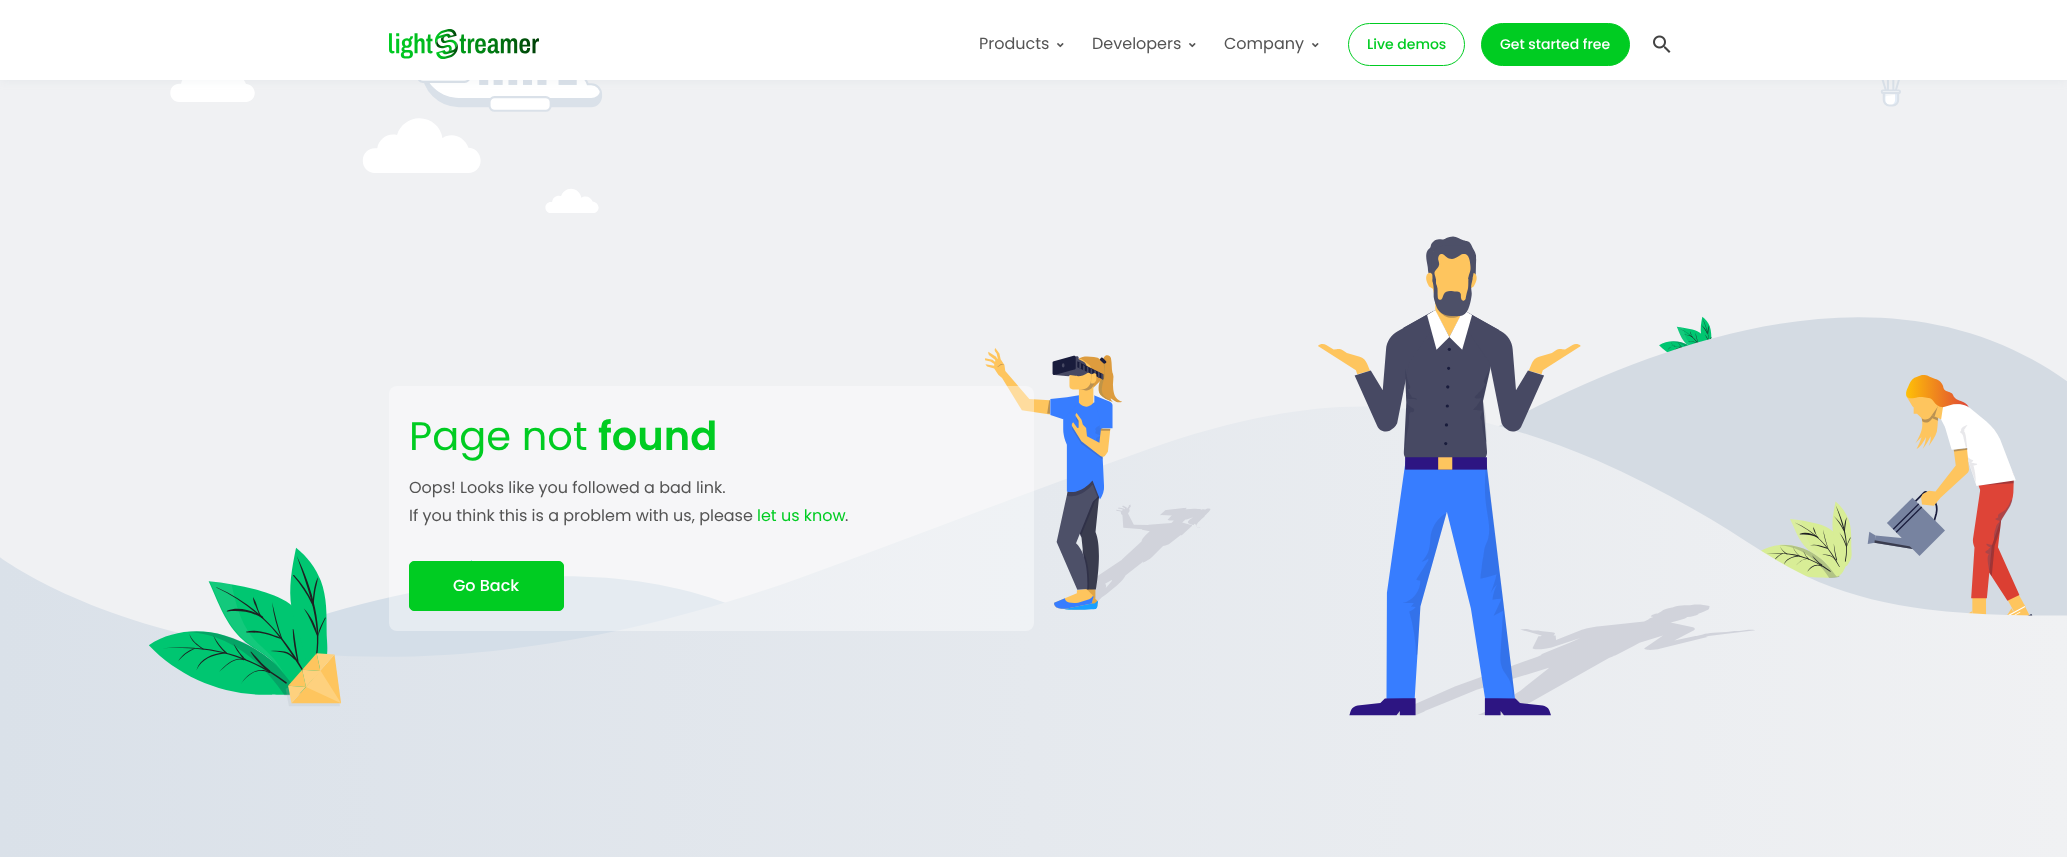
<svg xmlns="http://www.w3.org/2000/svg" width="2067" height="857">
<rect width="100%" height="100%" fill="#fff"/>
<image x="0" y="80" width="2067" height="777" href="media/1.png"/>
<rect y="1" width="2067" height="80" fill="#97a4af1a" filter="blur(5px)"/>
<rect width="2067" height="80" fill="#fff"/>
<image x="389" y="29" width="150" height="30" href="media/2.png"/>
<text x="979" y="49" style="font-family:Poppins;font-size:16px;fill:#545454">Products</text>
<image x="1057" y="43" width="7" height="5" href="media/3.png"/>
<text x="1092" y="49" style="font-family:Poppins;font-size:16px;fill:#545454">Developers</text>
<image x="1189" y="43" width="7" height="5" href="media/3.png"/>
<text x="1224" y="49" style="font-family:Poppins;font-size:16px;fill:#545454">Company</text>
<image x="1312" y="43" width="7" height="5" href="media/3.png"/>
<rect x="1348.5" y="23.5" width="116" height="42" rx="21" fill="none" stroke="#0c2"/>
<text x="1367" y="49" style="font-family:Poppins;font-size:14px;font-weight:500;fill:#0c2">Live demos</text>
<rect x="1481.5" y="23.5" width="148" height="42" rx="21" fill="#0c2" stroke="#0c2"/>
<text x="1500" y="49" style="font-family:Poppins;font-size:14px;font-weight:500;fill:#fff">Get started free</text>
<image x="1653" y="35" width="18" height="18" href="media/4.png"/>
<rect x="389" y="386" width="645" height="245" rx="8" fill="#fefeff66"/>
<text x="409" y="450" style="font-family:Poppins;font-size:40px;fill:#0c2">Page not</text>
<text x="598" y="450" style="font-family:Poppins;font-size:40px;font-weight:600;fill:#0c2">found</text>
<text x="409" y="493" style="font-family:Poppins;font-size:16px;fill:#545454">Oops! Looks like you followed a bad link.</text>
<text x="409" y="521" style="font-family:Poppins;font-size:16px;fill:#545454">If you think this is a problem with us, please</text>
<text x="757" y="521" style="font-family:Poppins;font-size:16px;fill:#0c2">let us know</text>
<text x="845" y="521" style="font-family:Poppins;font-size:16px;fill:#545454">.</text>
<rect x="409.5" y="561.5" width="154" height="49" rx="4.5" fill="#0c2" stroke="#0c2"/>
<text x="453" y="591" style="font-family:Poppins;font-size:16px;font-weight:500;fill:#fff">Go Back</text>
</svg>
